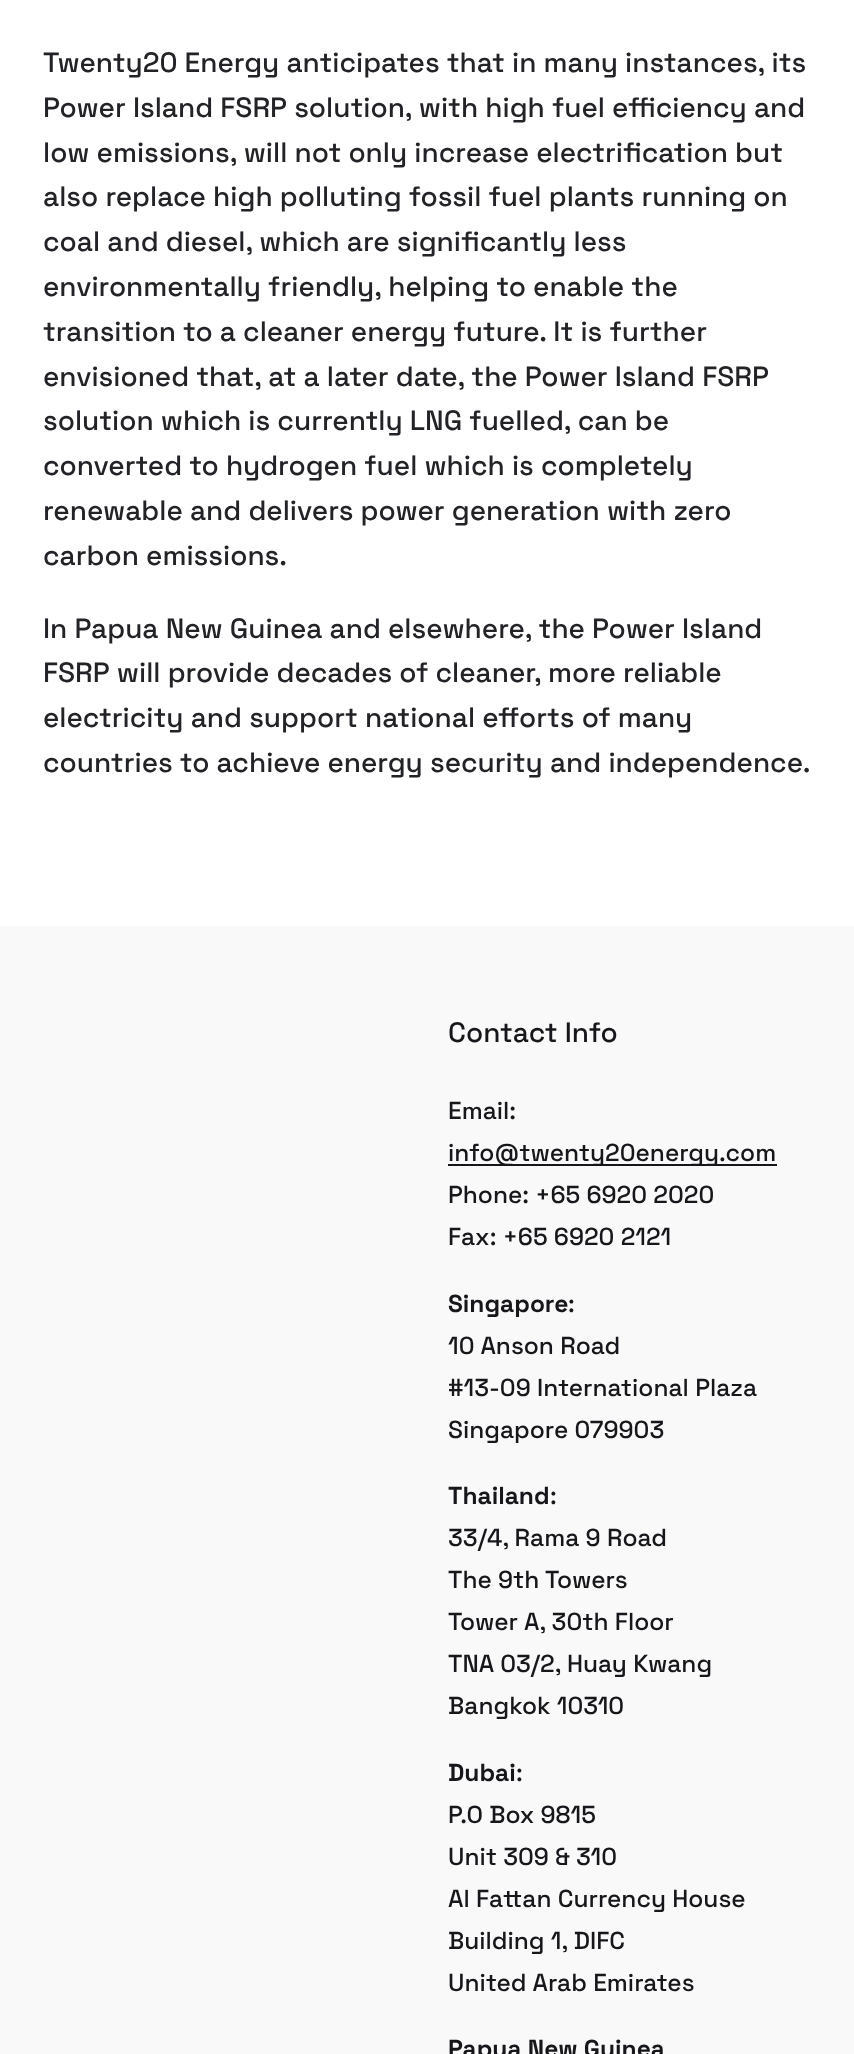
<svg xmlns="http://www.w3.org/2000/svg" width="854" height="2054">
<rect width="100%" height="100%" fill="#fff"/>
<text x="43" y="72" style="font-family:Space Grotesk;font-size:28px;font-weight:300;fill:#232226">Twenty20 Energy anticipates that in many instances, its</text>
<text x="43" y="117" style="font-family:Space Grotesk;font-size:28px;font-weight:300;fill:#232226">Power Island FSRP solution, with high fuel efficiency and</text>
<text x="43" y="162" style="font-family:Space Grotesk;font-size:28px;font-weight:300;fill:#232226">low emissions, will not only increase electrification but</text>
<text x="43" y="206" style="font-family:Space Grotesk;font-size:28px;font-weight:300;fill:#232226">also replace high polluting fossil fuel plants running on</text>
<text x="43" y="251" style="font-family:Space Grotesk;font-size:28px;font-weight:300;fill:#232226">coal and diesel, which are significantly less</text>
<text x="43" y="296" style="font-family:Space Grotesk;font-size:28px;font-weight:300;fill:#232226">environmentally friendly, helping to enable the</text>
<text x="43" y="341" style="font-family:Space Grotesk;font-size:28px;font-weight:300;fill:#232226">transition to a cleaner energy future. It is further</text>
<text x="43" y="386" style="font-family:Space Grotesk;font-size:28px;font-weight:300;fill:#232226">envisioned that, at a later date, the Power Island FSRP</text>
<text x="43" y="430" style="font-family:Space Grotesk;font-size:28px;font-weight:300;fill:#232226">solution which is currently LNG fuelled, can be</text>
<text x="43" y="475" style="font-family:Space Grotesk;font-size:28px;font-weight:300;fill:#232226">converted to hydrogen fuel which is completely</text>
<text x="43" y="520" style="font-family:Space Grotesk;font-size:28px;font-weight:300;fill:#232226">renewable and delivers power generation with zero</text>
<text x="43" y="565" style="font-family:Space Grotesk;font-size:28px;font-weight:300;fill:#232226">carbon emissions.</text>
<text x="43" y="638" style="font-family:Space Grotesk;font-size:28px;font-weight:300;fill:#232226">In Papua New Guinea and elsewhere, the Power Island</text>
<text x="43" y="682" style="font-family:Space Grotesk;font-size:28px;font-weight:300;fill:#232226">FSRP will provide decades of cleaner, more reliable</text>
<text x="43" y="727" style="font-family:Space Grotesk;font-size:28px;font-weight:300;fill:#232226">electricity and support national efforts of many</text>
<text x="43" y="772" style="font-family:Space Grotesk;font-size:28px;font-weight:300;fill:#232226">countries to achieve energy security and independence.</text>
<rect y="926" width="854" height="1128" fill="#f9f9f9"/>
<text x="448" y="1042" style="font-family:Space Grotesk;font-size:28px;font-weight:300;fill:#17161a">Contact Info</text>
<text x="448" y="1119" style="font-family:Space Grotesk;font-size:24.5px;font-weight:300;fill:#17161a">Email:</text>
<rect x="448" y="1164" width="329" height="2" fill="#17161a"/>
<text x="448" y="1161" style="font-family:Space Grotesk;font-size:24.5px;font-weight:300;fill:#17161a">info@twenty20energy.com</text>
<text x="448" y="1203" style="font-family:Space Grotesk;font-size:24.5px;font-weight:300;fill:#17161a">Phone: +65 6920 2020</text>
<text x="448" y="1245" style="font-family:Space Grotesk;font-size:24.5px;font-weight:300;fill:#17161a">Fax: +65 6920 2121</text>
<text x="448" y="1312" style="font-family:'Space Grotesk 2';font-size:24.5px;font-weight:300;fill:#17161a">Singapore</text>
<text x="568" y="1312" style="font-family:Space Grotesk;font-size:24.5px;font-weight:300;fill:#17161a">:</text>
<text x="448" y="1354" style="font-family:Space Grotesk;font-size:24.5px;font-weight:300;fill:#17161a">10 Anson Road</text>
<text x="448" y="1396" style="font-family:Space Grotesk;font-size:24.5px;font-weight:300;fill:#17161a">#13-09 International Plaza</text>
<text x="448" y="1438" style="font-family:Space Grotesk;font-size:24.5px;font-weight:300;fill:#17161a">Singapore 079903</text>
<text x="448" y="1504" style="font-family:'Space Grotesk 2';font-size:24.5px;font-weight:300;fill:#17161a">Thailand</text>
<text x="550" y="1504" style="font-family:Space Grotesk;font-size:24.5px;font-weight:300;fill:#17161a">:</text>
<text x="448" y="1546" style="font-family:Space Grotesk;font-size:24.5px;font-weight:300;fill:#17161a">33/4, Rama 9 Road</text>
<text x="448" y="1588" style="font-family:Space Grotesk;font-size:24.5px;font-weight:300;fill:#17161a">The 9th Towers</text>
<text x="448" y="1630" style="font-family:Space Grotesk;font-size:24.5px;font-weight:300;fill:#17161a">Tower A, 30th Floor</text>
<text x="448" y="1672" style="font-family:Space Grotesk;font-size:24.5px;font-weight:300;fill:#17161a">TNA 03/2, Huay Kwang</text>
<text x="448" y="1714" style="font-family:Space Grotesk;font-size:24.5px;font-weight:300;fill:#17161a">Bangkok 10310</text>
<text x="448" y="1781" style="font-family:'Space Grotesk 2';font-size:24.5px;font-weight:300;fill:#17161a">Dubai</text>
<text x="516" y="1781" style="font-family:Space Grotesk;font-size:24.5px;font-weight:300;fill:#17161a">:</text>
<text x="448" y="1823" style="font-family:Space Grotesk;font-size:24.5px;font-weight:300;fill:#17161a">P.O Box 9815</text>
<text x="448" y="1865" style="font-family:Space Grotesk;font-size:24.5px;font-weight:300;fill:#17161a">Unit 309 &amp; 310</text>
<text x="448" y="1907" style="font-family:Space Grotesk;font-size:24.5px;font-weight:300;fill:#17161a">Al Fattan Currency House</text>
<text x="448" y="1949" style="font-family:Space Grotesk;font-size:24.5px;font-weight:300;fill:#17161a">Building 1, DIFC</text>
<text x="448" y="1991" style="font-family:Space Grotesk;font-size:24.5px;font-weight:300;fill:#17161a">United Arab Emirates</text>
<text x="448" y="2057" style="font-family:'Space Grotesk 2';font-size:24.5px;font-weight:300;fill:#17161a">Papua New Guinea</text>
</svg>
